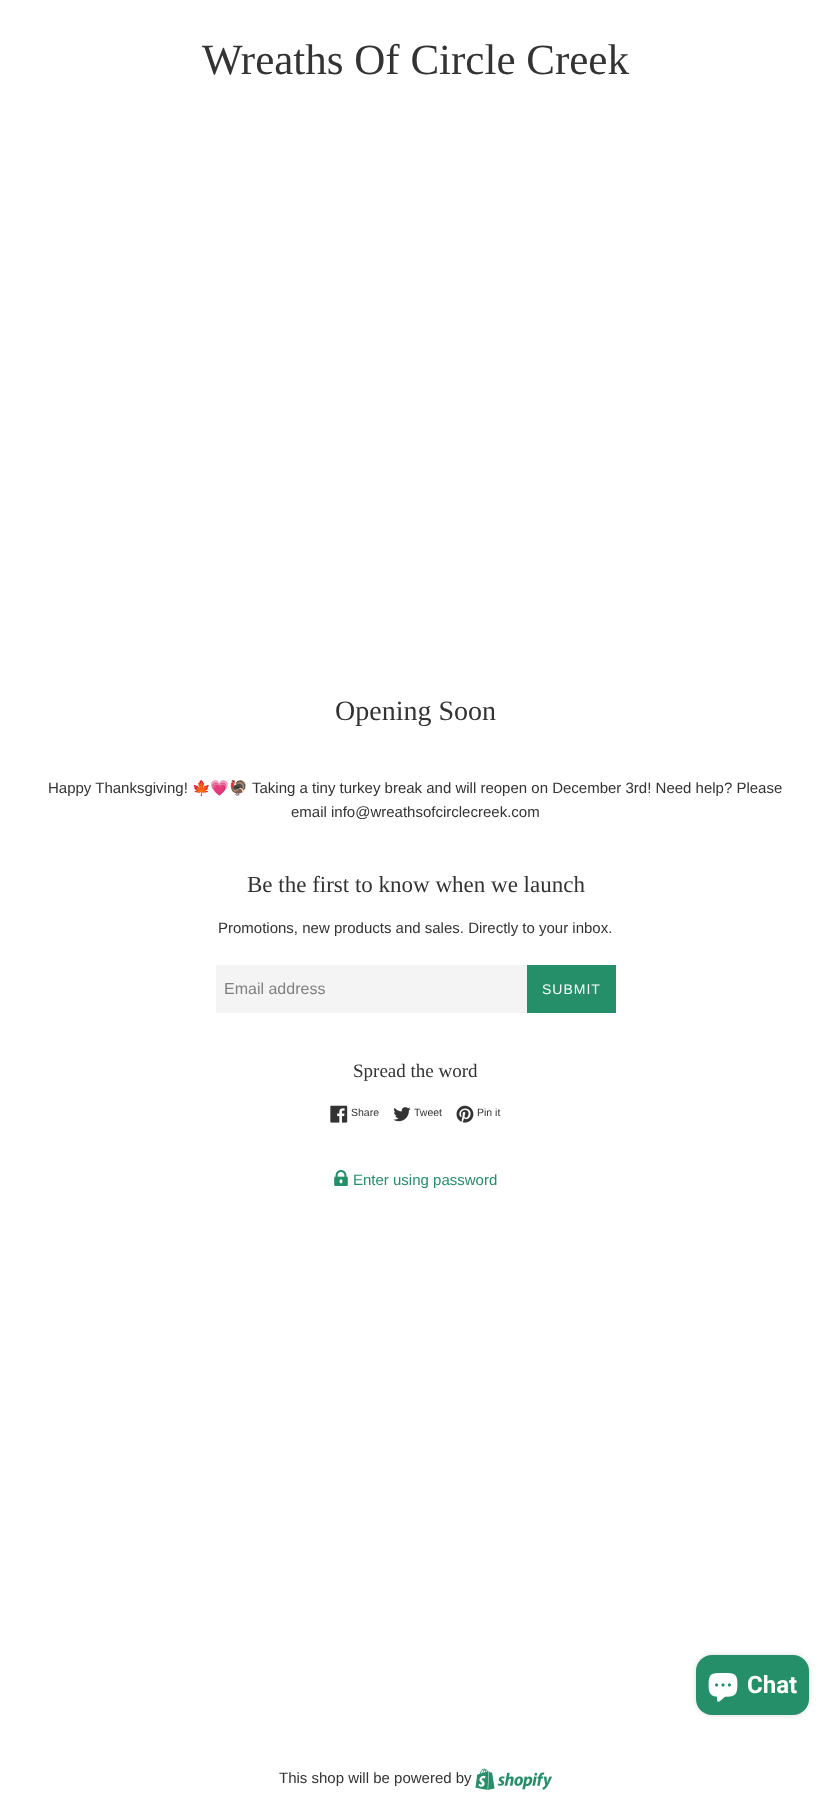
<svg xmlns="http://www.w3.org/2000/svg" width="831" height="1800">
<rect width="100%" height="100%" fill="#fff"/>
<text x="202" y="74" style="font-family:Liberation Serif;font-size:43px;fill:#333">Wreaths Of Circle Creek</text>
<text x="335" y="720" style="font-family:Liberation Serif;font-size:28px;fill:#333">Opening Soon</text>
<text x="48" y="793" style="font-family:Liberation Sans;font-size:15px;fill:#333">Happy Thanksgiving!</text>
<text x="192" y="793" style="font-family:Noto Color Emoji;font-size:15px;fill:#333">🍁💗🦃</text>
<text x="252" y="793" style="font-family:Liberation Sans;font-size:15px;fill:#333">Taking a tiny turkey break and will reopen on December 3rd! Need help? Please</text>
<text x="291" y="817" style="font-family:Liberation Sans;font-size:15px;fill:#333">email info@wreathsofcirclecreek.com</text>
<text x="247" y="892" style="font-family:Liberation Serif;font-size:23px;fill:#333">Be the first to know when we launch</text>
<text x="218" y="933" style="font-family:Liberation Sans;font-size:15px;fill:#333">Promotions, new products and sales. Directly to your inbox.</text>
<rect x="216" y="965" width="311" height="48" fill="#f4f4f4"/>
<text x="224" y="994" style="font-family:Liberation Sans;font-size:16px;fill:#808080">Email address</text>
<rect x="527" y="965" width="89" height="48" fill="#248f69"/>
<text x="542" y="994" style="font-family:Liberation Sans;font-size:14px;letter-spacing:1px;fill:#fff">SUBMIT</text>
<text x="353" y="1077" style="font-family:Liberation Serif;font-size:19px;fill:#333">Spread the word</text>
<image x="330" y="1105" width="18" height="18" href="media/1.png"/>
<text x="351" y="1116" style="font-family:Liberation Sans;font-size:10.5px;fill:#333">Share</text>
<image x="393" y="1107" width="18" height="15" href="media/2.png"/>
<text x="414" y="1116" style="font-family:Liberation Sans;font-size:10.5px;fill:#333">Tweet</text>
<image x="456" y="1105" width="18" height="18" href="media/3.png"/>
<text x="477" y="1116" style="font-family:Liberation Sans;font-size:10.5px;fill:#333">Pin it</text>
<image x="334" y="1170" width="14" height="16" href="media/4.png"/>
<text x="353" y="1185" style="font-family:Liberation Sans;font-size:15px;fill:#248f69">Enter using password</text>
<text x="279" y="1783" style="font-family:Liberation Sans;font-size:15px;fill:#333">This shop will be powered by</text>
<image x="475" y="1768" width="77" height="22" href="media/5.png"/>
<rect x="696" y="1655" width="113" height="60" rx="16" fill="#00000026" filter="blur(2.5px)"/>
<rect x="696" y="1655" width="113" height="60" rx="16" fill="#248f69"/>
<image x="708" y="1673" width="30" height="29" href="media/6.png"/>
<text x="747" y="1693" style="font-family:Roboto;font-size:24px;font-weight:bold;fill:#fff">Chat</text>
</svg>
